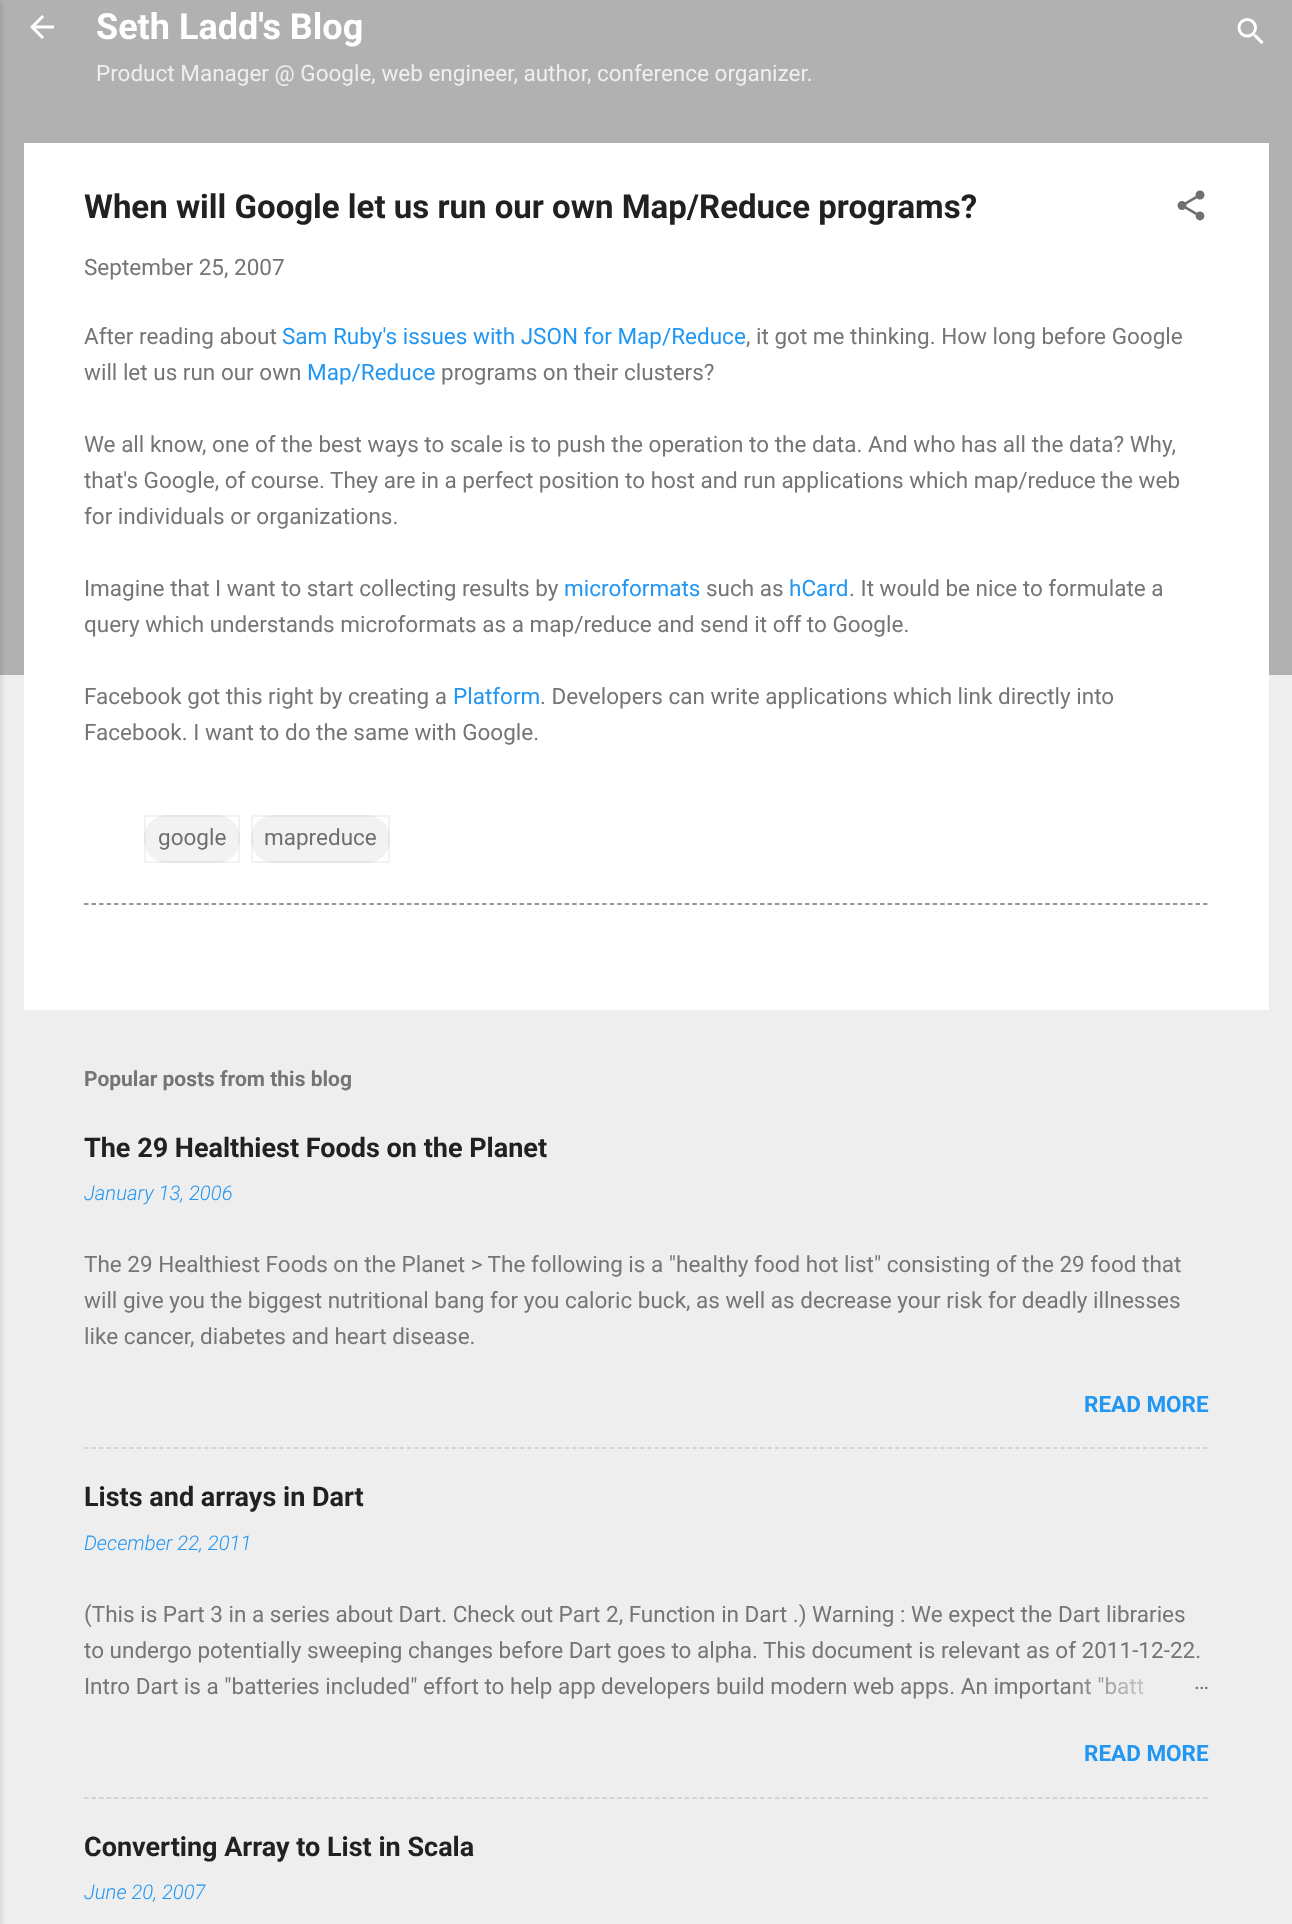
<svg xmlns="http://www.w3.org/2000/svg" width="1292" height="1924">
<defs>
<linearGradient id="g1" gradientUnits="userSpaceOnUse" x1="1209" y1="1686" x2="1065" y2="1686"><stop offset="0" stop-color="#eee"/><stop offset="0.2" stop-color="#eee"/><stop offset="1" stop-color="#eee" stop-opacity="0"/></linearGradient>
</defs>
<rect width="100%" height="100%" fill="#eee"/>
<rect width="1292" height="675" fill="#b1b1b1"/>
<rect x="-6" y="2" width="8" height="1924" fill="#0000001a" filter="blur(2px)"/>
<image x="30" y="15" width="24" height="24" href="media/1.png"/>
<text x="96" y="39" style="font-family:Roboto;font-size:36px;font-weight:bold;fill:#fff">Seth Ladd's Blog</text>
<text x="96" y="81" style="font-family:Roboto;font-size:22.5px;fill:#efefef">Product Manager @ Google, web engineer, author, conference organizer.</text>
<image x="1237" y="18" width="27" height="27" href="media/2.png"/>
<rect x="24" y="143" width="1245" height="867" fill="#fff"/>
<text x="84" y="218" style="font-family:Roboto;font-size:33px;font-weight:bold;fill:#212121">When will Google let us run our own Map/Reduce programs?</text>
<image x="1177" y="190" width="28" height="31" href="media/3.png"/>
<text x="84" y="275" style="font-family:Roboto;font-size:22.5px;fill:#757575">September 25, 2007</text>
<text x="84" y="344" style="font-family:Roboto;font-size:22.5px;fill:#757575">After reading about</text>
<text x="282" y="344" style="font-family:Roboto;font-size:22.5px;fill:#2196f3">Sam Ruby's issues with JSON for Map/Reduce</text>
<text x="746" y="344" style="font-family:Roboto;font-size:22.5px;fill:#757575">, it got me thinking. How long before Google</text>
<text x="84" y="380" style="font-family:Roboto;font-size:22.5px;fill:#757575">will let us run our own</text>
<text x="307" y="380" style="font-family:Roboto;font-size:22.5px;fill:#2196f3">Map/Reduce</text>
<text x="441" y="380" style="font-family:Roboto;font-size:22.5px;fill:#757575">programs on their clusters?</text>
<text x="84" y="452" style="font-family:Roboto;font-size:22.5px;fill:#757575">We all know, one of the best ways to scale is to push the operation to the data. And who has all the data? Why,</text>
<text x="84" y="488" style="font-family:Roboto;font-size:22.5px;fill:#757575">that's Google, of course.</text>
<text x="330" y="488" style="font-family:Roboto;font-size:22.5px;fill:#757575">They are in a perfect position to host and run applications which map/reduce the web</text>
<text x="84" y="524" style="font-family:Roboto;font-size:22.5px;fill:#757575">for individuals or organizations.</text>
<text x="84" y="596" style="font-family:Roboto;font-size:22.5px;fill:#757575">Imagine that I want to start collecting results by</text>
<text x="564" y="596" style="font-family:Roboto;font-size:22.5px;fill:#2196f3">microformats</text>
<text x="706" y="596" style="font-family:Roboto;font-size:22.5px;fill:#757575">such as</text>
<text x="789" y="596" style="font-family:Roboto;font-size:22.5px;fill:#2196f3">hCard</text>
<text x="849" y="596" style="font-family:Roboto;font-size:22.5px;fill:#757575">. It would be nice to formulate a</text>
<text x="84" y="632" style="font-family:Roboto;font-size:22.5px;fill:#757575">query which understands microformats as a map/reduce and send it off to Google.</text>
<text x="84" y="704" style="font-family:Roboto;font-size:22.5px;fill:#757575">Facebook got this right by creating a</text>
<text x="453" y="704" style="font-family:Roboto;font-size:22.5px;fill:#2196f3">Platform</text>
<text x="540" y="704" style="font-family:Roboto;font-size:22.5px;fill:#757575">. Developers can write applications which link directly into</text>
<text x="84" y="740" style="font-family:Roboto;font-size:22.5px;fill:#757575">Facebook. I want to do the same with Google.</text>
<rect x="144" y="815" width="96" height="48" rx="23" fill="#f2f2f2"/>
<rect x="145" y="816" width="94" height="46" fill="none" stroke="#0000000d" stroke-width="2"/>
<text x="158" y="845" style="font-family:Roboto;font-size:22.5px;fill:#6f6f6f">google</text>
<rect x="251" y="815" width="139" height="48" rx="23" fill="#f2f2f2"/>
<rect x="252" y="816" width="137" height="46" fill="none" stroke="#0000000d" stroke-width="2"/>
<text x="264" y="845" style="font-family:Roboto;font-size:22.5px;fill:#6f6f6f">mapreduce</text>
<path d="M84 904h1125" fill="none" stroke="#757575" stroke-width="1.5" stroke-dasharray="4.5 3.01"/>
<text x="84" y="1086" style="font-family:Roboto;font-size:21px;font-weight:bold;fill:#757575">Popular posts from this blog</text>
<text x="84" y="1157" style="font-family:Roboto;font-size:27px;font-weight:bold;fill:#212121">The 29 Healthiest Foods on the Planet</text>
<text x="84" y="1200" style="font-family:Roboto;font-size:20.25px;font-weight:300;font-style:italic;fill:#2196f3">January 13, 2006</text>
<text x="84" y="1272" style="font-family:Roboto;font-size:22.5px;fill:#757575">The 29 Healthiest Foods on the Planet &gt; The following is a "healthy food hot list" consisting of the 29 food that</text>
<text x="84" y="1308" style="font-family:Roboto;font-size:22.5px;fill:#757575">will give you the biggest nutritional bang for you caloric buck, as well as decrease your risk for deadly illnesses</text>
<text x="84" y="1344" style="font-family:Roboto;font-size:22.5px;fill:#757575">like cancer, diabetes and heart disease.</text>
<text x="1084" y="1412" style="font-family:Roboto;font-size:22.5px;font-weight:bold;fill:#2196f3">READ MORE</text>
<path d="M84 1448h1125" fill="none" stroke="#ccc" stroke-width="1.5" stroke-dasharray="4.5 3.01"/>
<text x="84" y="1506" style="font-family:Roboto;font-size:27px;font-weight:bold;fill:#212121">Lists and arrays in Dart</text>
<text x="84" y="1550" style="font-family:Roboto;font-size:20.25px;font-weight:300;font-style:italic;fill:#2196f3">December 22, 2011</text>
<text x="84" y="1622" style="font-family:Roboto;font-size:22.5px;fill:#757575">(This is Part 3 in a series about Dart. Check out Part 2, Function in Dart .) Warning : We expect the Dart libraries</text>
<text x="84" y="1658" style="font-family:Roboto;font-size:22.5px;fill:#757575">to undergo potentially sweeping changes before Dart goes to alpha. This document is relevant as of 2011-12-22.</text>
<text x="84" y="1694" style="font-family:Roboto;font-size:22.5px;fill:#757575">Intro Dart is a "batteries included" effort to help app developers build modern web apps. An important "batt</text>
<rect x="1068" y="1677" width="76" height="18" fill="url(#g1)"/>
<text x="1194" y="1689" style="font-family:Roboto;font-size:22.5px;fill:#757575">…</text>
<text x="1084" y="1761" style="font-family:Roboto;font-size:22.5px;font-weight:bold;fill:#2196f3">READ MORE</text>
<path d="M84 1798h1125" fill="none" stroke="#ccc" stroke-width="1.5" stroke-dasharray="4.5 3.01"/>
<text x="84" y="1856" style="font-family:Roboto;font-size:27px;font-weight:bold;fill:#212121">Converting Array to List in Scala</text>
<text x="84" y="1899" style="font-family:Roboto;font-size:20.25px;font-weight:300;font-style:italic;fill:#2196f3">June 20, 2007</text>
</svg>
